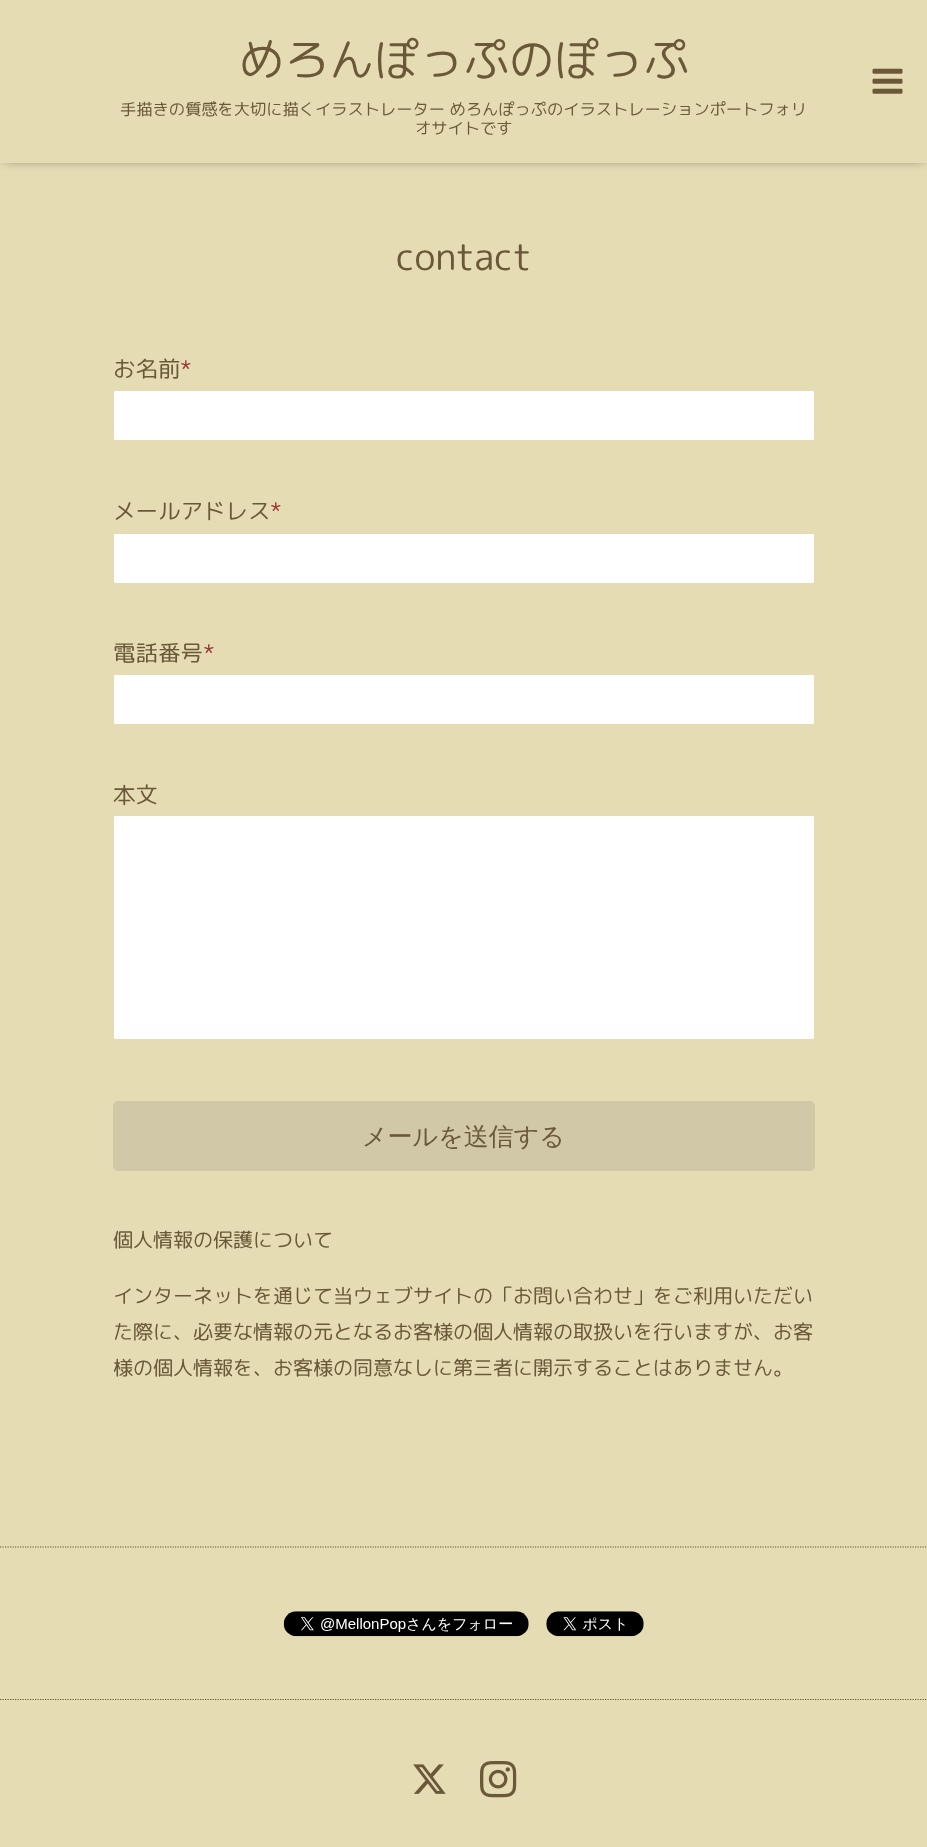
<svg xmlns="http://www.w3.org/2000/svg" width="927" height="1847">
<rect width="100%" height="100%" fill="#e5dcb4"/>
<rect x="5" y="6" width="918" height="153" fill="#00000099" filter="blur(6px)"/>
<rect width="927" height="163" fill="#e5dcb4"/>
<text x="239" y="76" style="font-family:'Rounded Mplus 1c';font-size:45px;fill:#6a5839">めろんぽっぷのぽっぷ</text>
<text x="120" y="115" style="font-family:'Rounded Mplus 1c';font-size:16.25px;fill:#6a5839">手描きの質感を大切に描くイラストレーター めろんぽっぷのイラストレーションポートフォリ</text>
<text x="415" y="134" style="font-family:'Rounded Mplus 1c';font-size:16.25px;fill:#6a5839">オサイトです</text>
<image x="872" y="68" width="31" height="26" href="media/1.png"/>
<text x="396" y="270" style="font-family:'Rounded Mplus 1c';font-size:37.5px;fill:#6a5839">contact</text>
<text x="113" y="377" style="font-family:'Rounded Mplus 1c';font-size:22.5px;fill:#6a5839">お名前</text>
<text x="180" y="377" style="font-family:'Rounded Mplus 1c';font-size:22.5px;fill:#993737">*</text>
<rect x="113.5" y="390.5" width="701" height="50" rx="2" fill="#fff" stroke="#e5dcb4"/>
<text x="113" y="519" style="font-family:'Rounded Mplus 1c';font-size:22.5px;fill:#6a5839">メールアドレス</text>
<text x="270" y="519" style="font-family:'Rounded Mplus 1c';font-size:22.5px;fill:#993737">*</text>
<rect x="113.5" y="533.5" width="701" height="50" rx="2" fill="#fff" stroke="#e5dcb4"/>
<text x="113" y="661" style="font-family:'Rounded Mplus 1c';font-size:22.5px;fill:#6a5839">電話番号</text>
<text x="203" y="661" style="font-family:'Rounded Mplus 1c';font-size:22.5px;fill:#993737">*</text>
<rect x="113.5" y="674.5" width="701" height="50" rx="2" fill="#fff" stroke="#e5dcb4"/>
<text x="113" y="803" style="font-family:'Rounded Mplus 1c';font-size:22.5px;fill:#6a5839">本文</text>
<rect x="113.5" y="815.5" width="701" height="224" rx="2" fill="#fff" stroke="#e5dcb4"/>
<rect x="113" y="1101" width="702" height="70" rx="5" fill="#d0c8a7"/>
<text x="362" y="1145" style="font-family:WenQuanYi Zen Hei;font-size:25px;font-weight:500;fill:#6a5839">メールを送信する</text>
<text x="113" y="1247" style="font-family:'Rounded Mplus 1c';font-size:20px;fill:#6a5839">個人情報の保護について</text>
<text x="113" y="1303" style="font-family:'Rounded Mplus 1c';font-size:20px;fill:#6a5839">インターネットを通じて当ウェブサイトの「お問い合わせ」をご利用いただい</text>
<text x="113" y="1339" style="font-family:'Rounded Mplus 1c';font-size:20px;fill:#6a5839">た際に、必要な情報の元となるお客様の個人情報の取扱いを行いますが、お客</text>
<text x="113" y="1375" style="font-family:'Rounded Mplus 1c';font-size:20px;fill:#6a5839">様の個人情報を、お客様の同意なしに第三者に開示することはありません。</text>
<path d="M0 1547h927.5" fill="none" stroke="#6a5839" stroke-width="1.2" stroke-dasharray="1.25 1.25"/>
<image x="283" y="1611" width="246" height="26" href="media/2.png"/>
<image x="546" y="1611" width="98" height="26" href="media/3.png"/>
<path d="M0 1699.5h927.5" fill="none" stroke="#6a5839" stroke-width="1.2" stroke-dasharray="1.25 1.25"/>
<image x="413" y="1764" width="33" height="30" href="media/4.png"/>
<image x="480" y="1761" width="37" height="37" href="media/5.png"/>
</svg>
